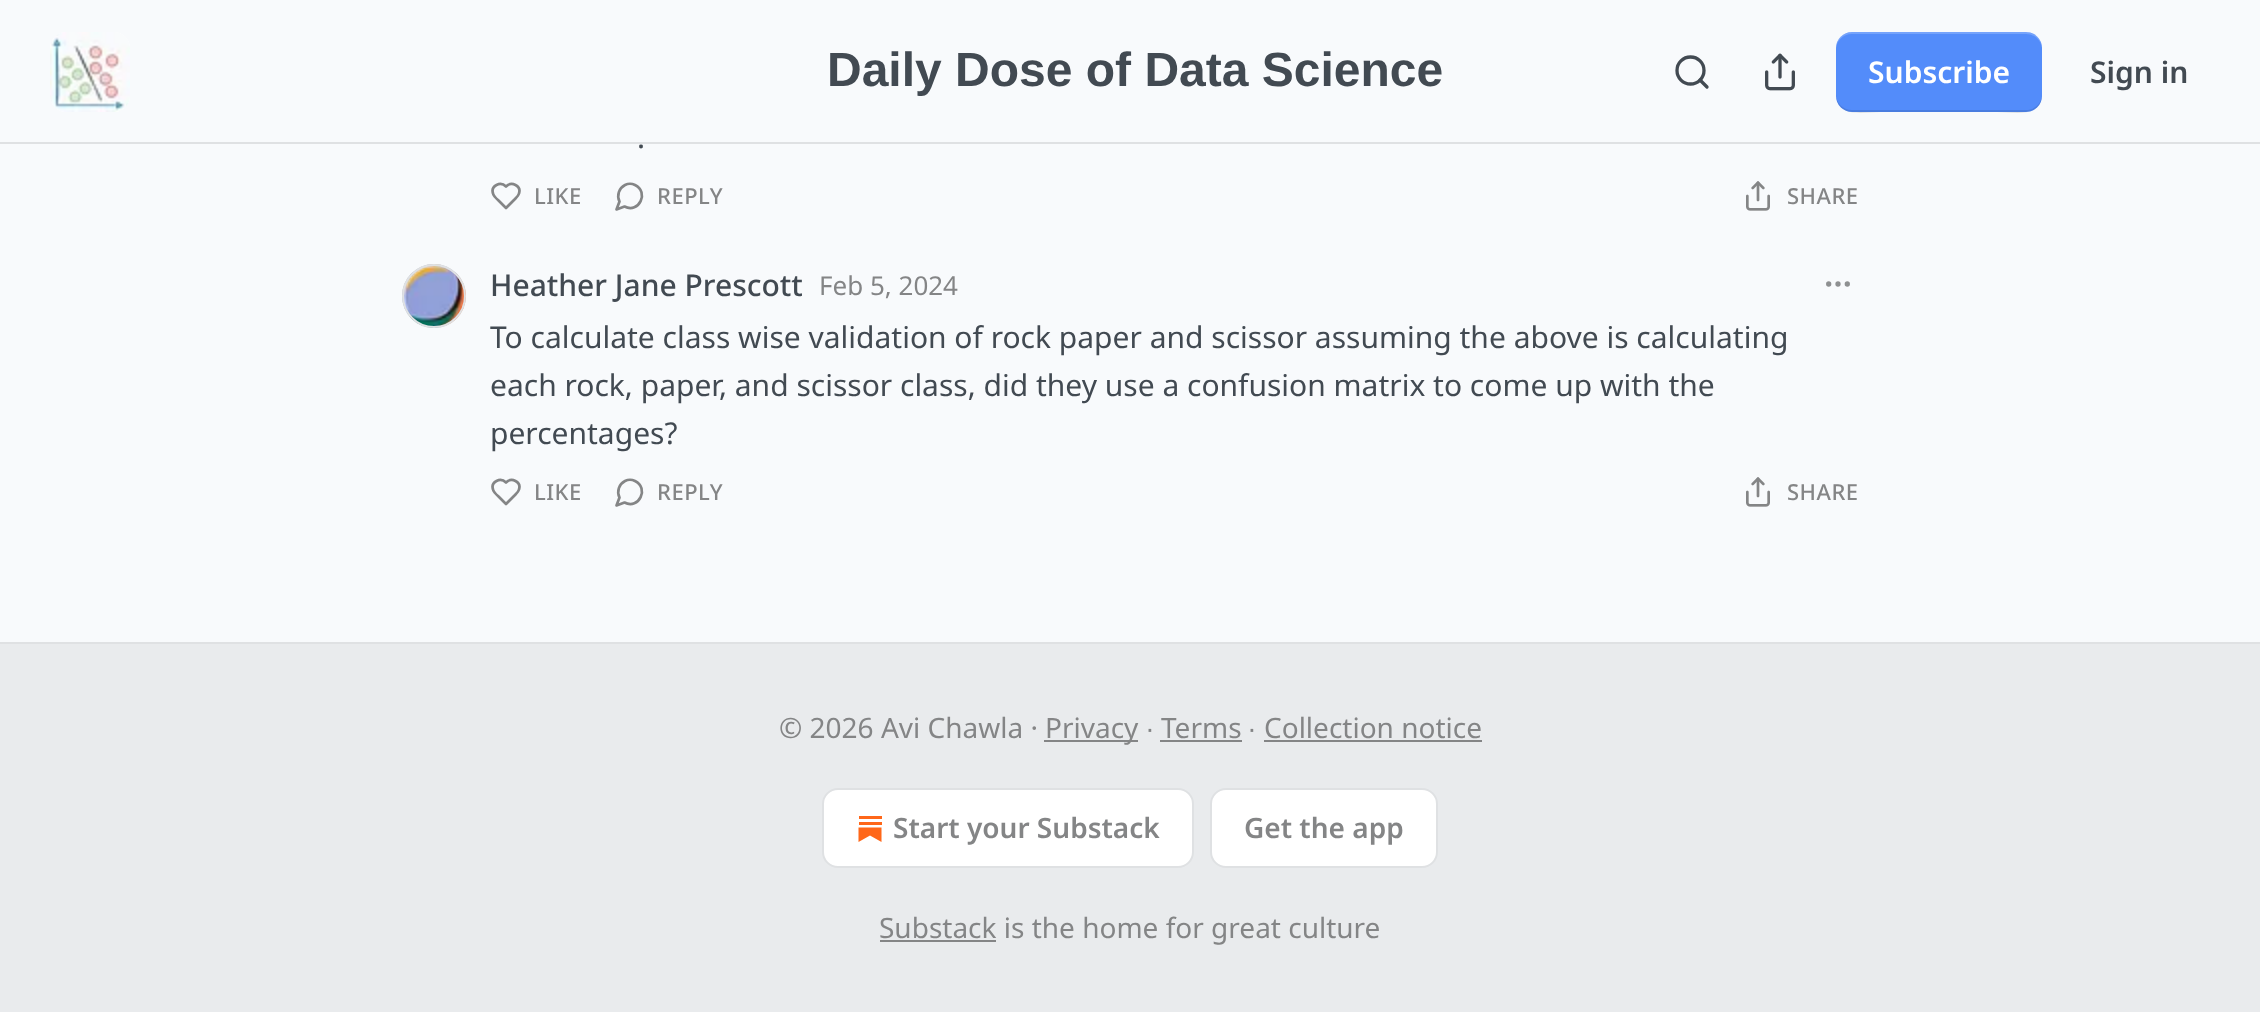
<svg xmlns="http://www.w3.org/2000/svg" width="2260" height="1012">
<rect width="100%" height="100%" fill="#f8fafc"/>
<rect y="142" width="2260" height="2" fill="#dfe1e3"/>
<rect x="50" y="32" width="80" height="80" rx="16" fill="#fff"/>
<image x="50" y="32" width="80" height="80" href="media/1.png"/>
<text x="827" y="86" style="font-family:Liberation Sans;font-size:48px;font-weight:bold;fill:#424a52">Daily Dose of Data Science</text>
<circle cx="1690.5" cy="70.5" r="13.5" fill="none" stroke="#424a52" stroke-width="3.3"/>
<path d="M1707 87l-7-7" fill="none" stroke="#424a52" stroke-width="3.3" stroke-linecap="round" stroke-linejoin="round"/>
<image x="1765" y="53" width="30" height="38" href="media/2.png"/>
<rect x="1836" y="32" width="206" height="80" rx="16" fill="#538cfa"/>
<path d="M1836 94c0 25 29 18 45 18h116c16 0 45 7 45-18c0 9-7 16-16 16h-174c-9 0-16-7-16-16z" fill="#0000001a"/>
<path d="M1852 34h174c9 0 16 7 16 16c0-25-29-18-45-18h-116c-16 0-45-7-45 18c0-9 7-16 16-16z" fill="#ffffff33"/>
<text x="1868" y="83" style="font-family:Noto Sans;font-size:30px;font-weight:600;fill:#fff">Subscribe</text>
<text x="2090" y="83" style="font-family:Noto Sans;font-size:30px;font-weight:600;fill:#424a52">Sign in</text>
<text x="637" y="148" style="font-family:Noto Sans;font-size:30px;fill:#424a52">.</text>
<path d="M515.5 198.5c1.5-1.5 3-3 3.5-5c2.5-8-7.5-12.5-13-7c-5.5-5.5-15.5-1-13 7c1 3.5 4.5 6 7 8.5l6 6z" fill="none" stroke="#848586" stroke-width="2.7" stroke-linecap="round" stroke-linejoin="round"/>
<text x="534" y="204" style="font-family:Noto Sans;font-size:22px;font-weight:500;letter-spacing:0.5px;fill:#848586">LIKE</text>
<path d="M624.5 206.5c14.5 7.5 25-14.5 10.5-21.5c-3-1.5-7-1.5-10 0c-6 3-8.5 10.5-5.5 16.5l-3 8z" fill="none" stroke="#848586" stroke-width="2.7" stroke-linecap="round" stroke-linejoin="round"/>
<text x="657" y="204" style="font-family:Noto Sans;font-size:22px;font-weight:500;letter-spacing:0.5px;fill:#848586">REPLY</text>
<image x="1746" y="181" width="24" height="30" href="media/3.png"/>
<text x="1787" y="204" style="font-family:Noto Sans;font-size:22px;font-weight:500;letter-spacing:0.5px;fill:#848586">SHARE</text>
<circle cx="434" cy="296" r="31" fill="none" stroke="#dfe1e3" stroke-width="2"/>
<image x="402" y="264" width="64" height="64" href="media/4.png"/>
<circle cx="434" cy="296" r="31" fill="none" stroke="#dfe1e3" stroke-width="2"/>
<text x="490" y="296" style="font-family:Noto Sans;font-size:30px;font-weight:500;fill:#424a52">Heather Jane Prescott</text>
<text x="819" y="295" style="font-family:Noto Sans;font-size:26px;fill:#848586">Feb 5, 2024</text>
<circle cx="1838" cy="284" r="1.3" fill="none" stroke="#8e9091" stroke-width="2.7"/>
<circle cx="1847.3" cy="284" r="1.3" fill="none" stroke="#8e9091" stroke-width="2.7"/>
<circle cx="1828.7" cy="284" r="1.3" fill="none" stroke="#8e9091" stroke-width="2.7"/>
<text x="490" y="348" style="font-family:Noto Sans;font-size:30px;fill:#424a52">To calculate class wise validation of rock paper and scissor assuming the above is calculating</text>
<text x="490" y="396" style="font-family:Noto Sans;font-size:30px;fill:#424a52">each rock, paper, and scissor class, did they use a confusion matrix to come up with the</text>
<text x="490" y="444" style="font-family:Noto Sans;font-size:30px;fill:#424a52">percentages?</text>
<path d="M515.5 494.5c1.5-1.5 3-3 3.5-5c2.5-8-7.5-12.5-13-7c-5.5-5.5-15.5-1-13 7c1 3.5 4.5 6 7 8.5l6 6z" fill="none" stroke="#848586" stroke-width="2.7" stroke-linecap="round" stroke-linejoin="round"/>
<text x="534" y="500" style="font-family:Noto Sans;font-size:22px;font-weight:500;letter-spacing:0.5px;fill:#848586">LIKE</text>
<path d="M624.5 502.5c14.5 7.5 25-14.5 10.5-21.5c-3-1.5-7-1.5-10 0c-6 3-8.5 10.5-5.5 16.5l-3 8z" fill="none" stroke="#848586" stroke-width="2.7" stroke-linecap="round" stroke-linejoin="round"/>
<text x="657" y="500" style="font-family:Noto Sans;font-size:22px;font-weight:500;letter-spacing:0.5px;fill:#848586">REPLY</text>
<image x="1746" y="477" width="24" height="30" href="media/3.png"/>
<text x="1787" y="500" style="font-family:Noto Sans;font-size:22px;font-weight:500;letter-spacing:0.5px;fill:#848586">SHARE</text>
<rect y="644" width="2260" height="368" fill="#e9ebed"/>
<rect y="642" width="2260" height="2" fill="#dfe1e3"/>
<text x="779" y="738" style="font-family:Noto Sans;font-size:28px;fill:#848586">© 2026 Avi Chawla ·</text>
<rect x="1044" y="740" width="94" height="2" fill="#848586"/>
<text x="1045" y="738" style="font-family:Noto Sans;font-size:28px;fill:#848586">Privacy</text>
<text x="1146" y="738" style="font-family:Liberation Sans;font-size:28px;fill:#848586">∙</text>
<text x="1161" y="738" style="font-family:Noto Sans;font-size:28px;fill:#848586">Terms</text>
<rect x="1160" y="740" width="82" height="2" fill="#848586"/>
<text x="1248" y="738" style="font-family:Liberation Sans;font-size:28px;fill:#848586">∙</text>
<text x="1264" y="738" style="font-family:Noto Sans;font-size:28px;fill:#848586">Collection notice</text>
<rect x="1264" y="740" width="218" height="2" fill="#848586"/>
<rect x="823" y="789" width="370" height="78" rx="15" fill="#fff" stroke="#dfe1e3" stroke-width="2"/>
<rect x="859" y="822" width="23" height="3" fill="#ff6719"/>
<path d="M858.5 827.5v14.5l11.5-6.5l11.5 6.5v-14.5z" fill="#ff6719"/>
<rect x="859" y="816" width="23" height="3" fill="#ff6719"/>
<text x="893" y="838" style="font-family:Noto Sans;font-size:28px;font-weight:600;fill:#848586">Start your Substack</text>
<rect x="1211" y="789" width="226" height="78" rx="15" fill="#fff" stroke="#dfe1e3" stroke-width="2"/>
<text x="1244" y="838" style="font-family:Noto Sans;font-size:28px;font-weight:600;fill:#848586">Get the app</text>
<rect x="880" y="940" width="116" height="2" fill="#848586"/>
<text x="879" y="938" style="font-family:Noto Sans;font-size:28px;fill:#848586">Substack is the home for great culture</text>
</svg>
